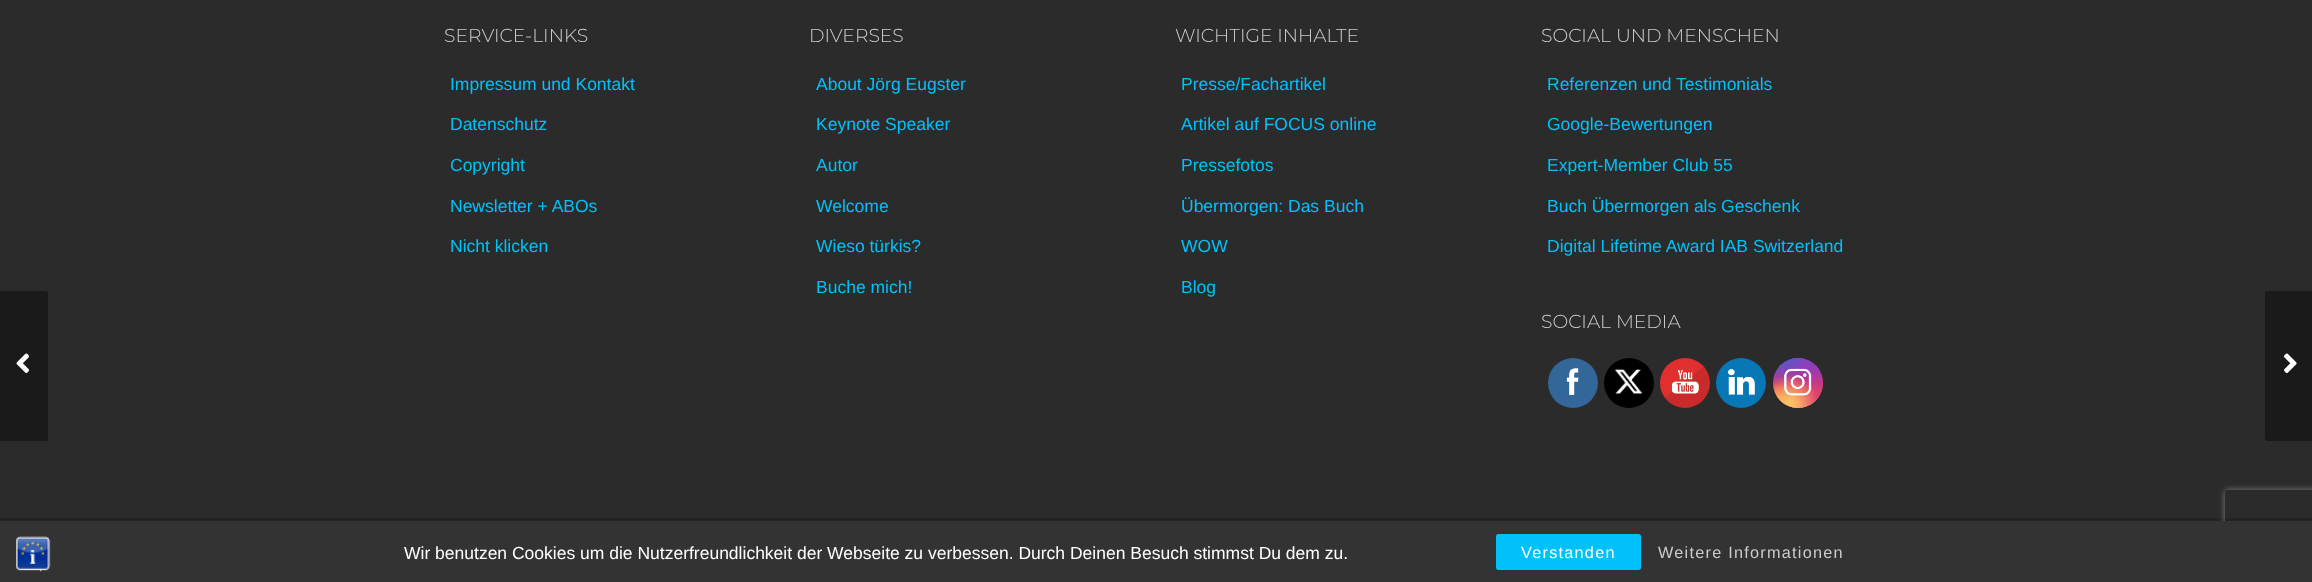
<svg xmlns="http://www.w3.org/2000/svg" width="2312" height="582">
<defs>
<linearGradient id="g1" gradientUnits="userSpaceOnUse" x1="1663" y1="355" x2="1707" y2="410"><stop offset="0.14" stop-color="#e02f2f"/><stop offset="0.49" stop-color="#e02f2f"/><stop offset="0.49" stop-color="#c92a2a"/><stop offset="0.85" stop-color="#c92a2a"/></linearGradient>
<linearGradient id="g2" gradientUnits="userSpaceOnUse" x1="1798" y1="358" x2="1798" y2="408"><stop offset="0" stop-color="#6559ca"/><stop offset="0.3" stop-color="#bc318f"/><stop offset="0.5" stop-color="#e33f5f"/><stop offset="0.7" stop-color="#f77638"/><stop offset="1" stop-color="#fec66d"/></linearGradient>
<radialGradient id="g3" gradientUnits="userSpaceOnUse" cx="1823" cy="408" r="71"><stop offset="0" stop-color="#d9317a"/><stop offset="1" stop-color="#d9317a" stop-opacity="0"/></radialGradient>
<radialGradient id="g4" gradientUnits="userSpaceOnUse" cx="0" cy="0" r="1" gradientTransform="matrix(42 0 0 85 1803 348)"><stop offset="0" stop-color="#893dc2"/><stop offset="0.5" stop-color="#893dc2" stop-opacity="0"/></radialGradient>
<radialGradient id="g5" gradientUnits="userSpaceOnUse" cx="1823" cy="358" r="71"><stop offset="0" stop-color="#893dc2"/><stop offset="0.5" stop-color="#893dc2" stop-opacity="0"/></radialGradient>
<radialGradient id="g6" gradientUnits="userSpaceOnUse" cx="0" cy="0" r="1" gradientTransform="matrix(57 0 0 106 1783 333)"><stop offset="0" stop-color="#5258cf"/><stop offset="0.5" stop-color="#5258cf" stop-opacity="0"/></radialGradient>
<radialGradient id="g7" gradientUnits="userSpaceOnUse" cx="0" cy="0" r="1" gradientTransform="matrix(71 0 0 88 1773 345)"><stop offset="0" stop-color="#5258cf"/><stop offset="0.5" stop-color="#5258cf" stop-opacity="0"/></radialGradient>
<radialGradient id="g8" gradientUnits="userSpaceOnUse" cx="1773" cy="428" r="86"><stop offset="0" stop-color="#fec564"/><stop offset="0.5" stop-color="#fec564" stop-opacity="0"/></radialGradient>
<radialGradient id="g9" gradientUnits="userSpaceOnUse" cx="1790" cy="403" r="56"><stop offset="0" stop-color="#fec564"/><stop offset="0.5" stop-color="#fec564" stop-opacity="0"/></radialGradient>
<clipPath id="clip1"><path d="M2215 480h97v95h-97zm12.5 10h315c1.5 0 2.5 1 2.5 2.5v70c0 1.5-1 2.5-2.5 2.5h-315c-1.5 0-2.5-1-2.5-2.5v-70c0-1.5 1-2.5 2.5-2.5z" clip-rule="evenodd"/></clipPath>
</defs>
<rect width="100%" height="100%" fill="#2b2b2b"/>
<text x="444" y="42" style="font-family:Montserrat;font-size:18.75px;font-weight:300;fill:#ccc">SERVICE-LINKS</text>
<text x="450" y="90" style="font-family:Liberation Sans;font-size:17.5px;fill:#00c1fa">Impressum und Kontakt</text>
<text x="450" y="130" style="font-family:Liberation Sans;font-size:17.5px;fill:#00c1fa">Datenschutz</text>
<text x="450" y="171" style="font-family:Liberation Sans;font-size:17.5px;fill:#00c1fa">Copyright</text>
<text x="450" y="212" style="font-family:Liberation Sans;font-size:17.5px;fill:#00c1fa">Newsletter + ABOs</text>
<text x="450" y="252" style="font-family:Liberation Sans;font-size:17.5px;fill:#00c1fa">Nicht klicken</text>
<text x="809" y="42" style="font-family:Montserrat;font-size:18.75px;font-weight:300;fill:#ccc">DIVERSES</text>
<text x="816" y="90" style="font-family:Liberation Sans;font-size:17.5px;fill:#00c1fa">About Jörg Eugster</text>
<text x="816" y="130" style="font-family:Liberation Sans;font-size:17.5px;fill:#00c1fa">Keynote Speaker</text>
<text x="816" y="171" style="font-family:Liberation Sans;font-size:17.5px;fill:#00c1fa">Autor</text>
<text x="816" y="212" style="font-family:Liberation Sans;font-size:17.5px;fill:#00c1fa">Welcome</text>
<text x="816" y="252" style="font-family:Liberation Sans;font-size:17.5px;fill:#00c1fa">Wieso türkis?</text>
<text x="816" y="293" style="font-family:Liberation Sans;font-size:17.5px;fill:#00c1fa">Buche mich!</text>
<text x="1175" y="42" style="font-family:Montserrat;font-size:18.75px;font-weight:300;fill:#ccc">WICHTIGE INHALTE</text>
<text x="1181" y="90" style="font-family:Liberation Sans;font-size:17.5px;fill:#00c1fa">Presse/Fachartikel</text>
<text x="1181" y="130" style="font-family:Liberation Sans;font-size:17.5px;fill:#00c1fa">Artikel auf FOCUS online</text>
<text x="1181" y="171" style="font-family:Liberation Sans;font-size:17.5px;fill:#00c1fa">Pressefotos</text>
<text x="1181" y="212" style="font-family:Liberation Sans;font-size:17.5px;fill:#00c1fa">Übermorgen: Das Buch</text>
<text x="1181" y="252" style="font-family:Liberation Sans;font-size:17.5px;fill:#00c1fa">WOW</text>
<text x="1181" y="293" style="font-family:Liberation Sans;font-size:17.5px;fill:#00c1fa">Blog</text>
<text x="1541" y="42" style="font-family:Montserrat;font-size:18.75px;font-weight:300;fill:#ccc">SOCIAL UND MENSCHEN</text>
<text x="1547" y="90" style="font-family:Liberation Sans;font-size:17.5px;fill:#00c1fa">Referenzen und Testimonials</text>
<text x="1547" y="130" style="font-family:Liberation Sans;font-size:17.5px;fill:#00c1fa">Google-Bewertungen</text>
<text x="1547" y="171" style="font-family:Liberation Sans;font-size:17.5px;fill:#00c1fa">Expert-Member Club 55</text>
<text x="1547" y="212" style="font-family:Liberation Sans;font-size:17.5px;fill:#00c1fa">Buch Übermorgen als Geschenk</text>
<text x="1547" y="252" style="font-family:Liberation Sans;font-size:17.5px;fill:#00c1fa">Digital Lifetime Award IAB Switzerland</text>
<text x="1541" y="328" style="font-family:Montserrat;font-size:18.75px;font-weight:300;fill:#ccc">SOCIAL MEDIA</text>
<circle cx="1573" cy="383" r="25" fill="#369"/>
<image x="1566" y="368" width="13" height="27" href="media/1.png"/>
<circle cx="1629" cy="383" r="25" fill="#000"/>
<image x="1615" y="369" width="28" height="25" href="media/2.png"/>
<circle cx="1685" cy="383" r="25" fill="url(#g1)"/>
<image x="1672" y="370" width="27" height="24" href="media/3.png"/>
<circle cx="1741" cy="383" r="25" fill="#0877b5"/>
<image x="1728" y="369" width="27" height="26" href="media/4.png"/>
<circle cx="1798" cy="383" r="25" fill="url(#g2)"/>
<circle cx="1798" cy="383" r="25" fill="url(#g3)"/>
<circle cx="1798" cy="383" r="25" fill="url(#g4)"/>
<circle cx="1798" cy="383" r="25" fill="url(#g5)"/>
<circle cx="1798" cy="383" r="25" fill="url(#g6)"/>
<circle cx="1798" cy="383" r="25" fill="url(#g7)"/>
<circle cx="1798" cy="383" r="25" fill="url(#g8)"/>
<circle cx="1798" cy="383" r="25" fill="url(#g9)"/>
<image x="1784" y="368" width="28" height="28" href="media/5.png"/>
<rect y="519" width="2312" height="2" fill="#242424"/>
<rect y="518" width="2312" height="1" fill="#222"/>
<rect x="-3" y="291" width="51" height="150" rx="2.5" fill="#1a1a1a"/>
<image x="16" y="353" width="14" height="20" href="media/6.png"/>
<rect x="2265" y="291" width="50" height="150" rx="2.5" fill="#1a1a1a"/>
<image x="2284" y="353" width="13" height="20" href="media/7.png"/>
<g clip-path="url(#clip1)">
<rect x="2225" y="490" width="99" height="75" rx="2.5" fill="#808080" filter="blur(3px)"/>
</g>
<rect y="521" width="2312" height="61" fill="#333"/>
<image x="16" y="536" width="35" height="36" href="media/8.png"/>
<text x="404" y="559" style="font-family:Liberation Sans;font-size:17.5px;fill:#fff">Wir benutzen Cookies um die Nutzerfreundlichkeit der Webseite zu verbessen. Durch Deinen Besuch stimmst Du dem zu.</text>
<rect x="1496" y="534" width="145" height="36" rx="2.5" fill="#00c1fa"/>
<text x="1521" y="558" style="font-family:Liberation Sans;font-size:16.25px;letter-spacing:1.25px;fill:#fff">Verstanden</text>
<text x="1658" y="558" style="font-family:Liberation Sans;font-size:16.25px;letter-spacing:1.25px;fill:#ccc">Weitere Informationen</text>
</svg>
